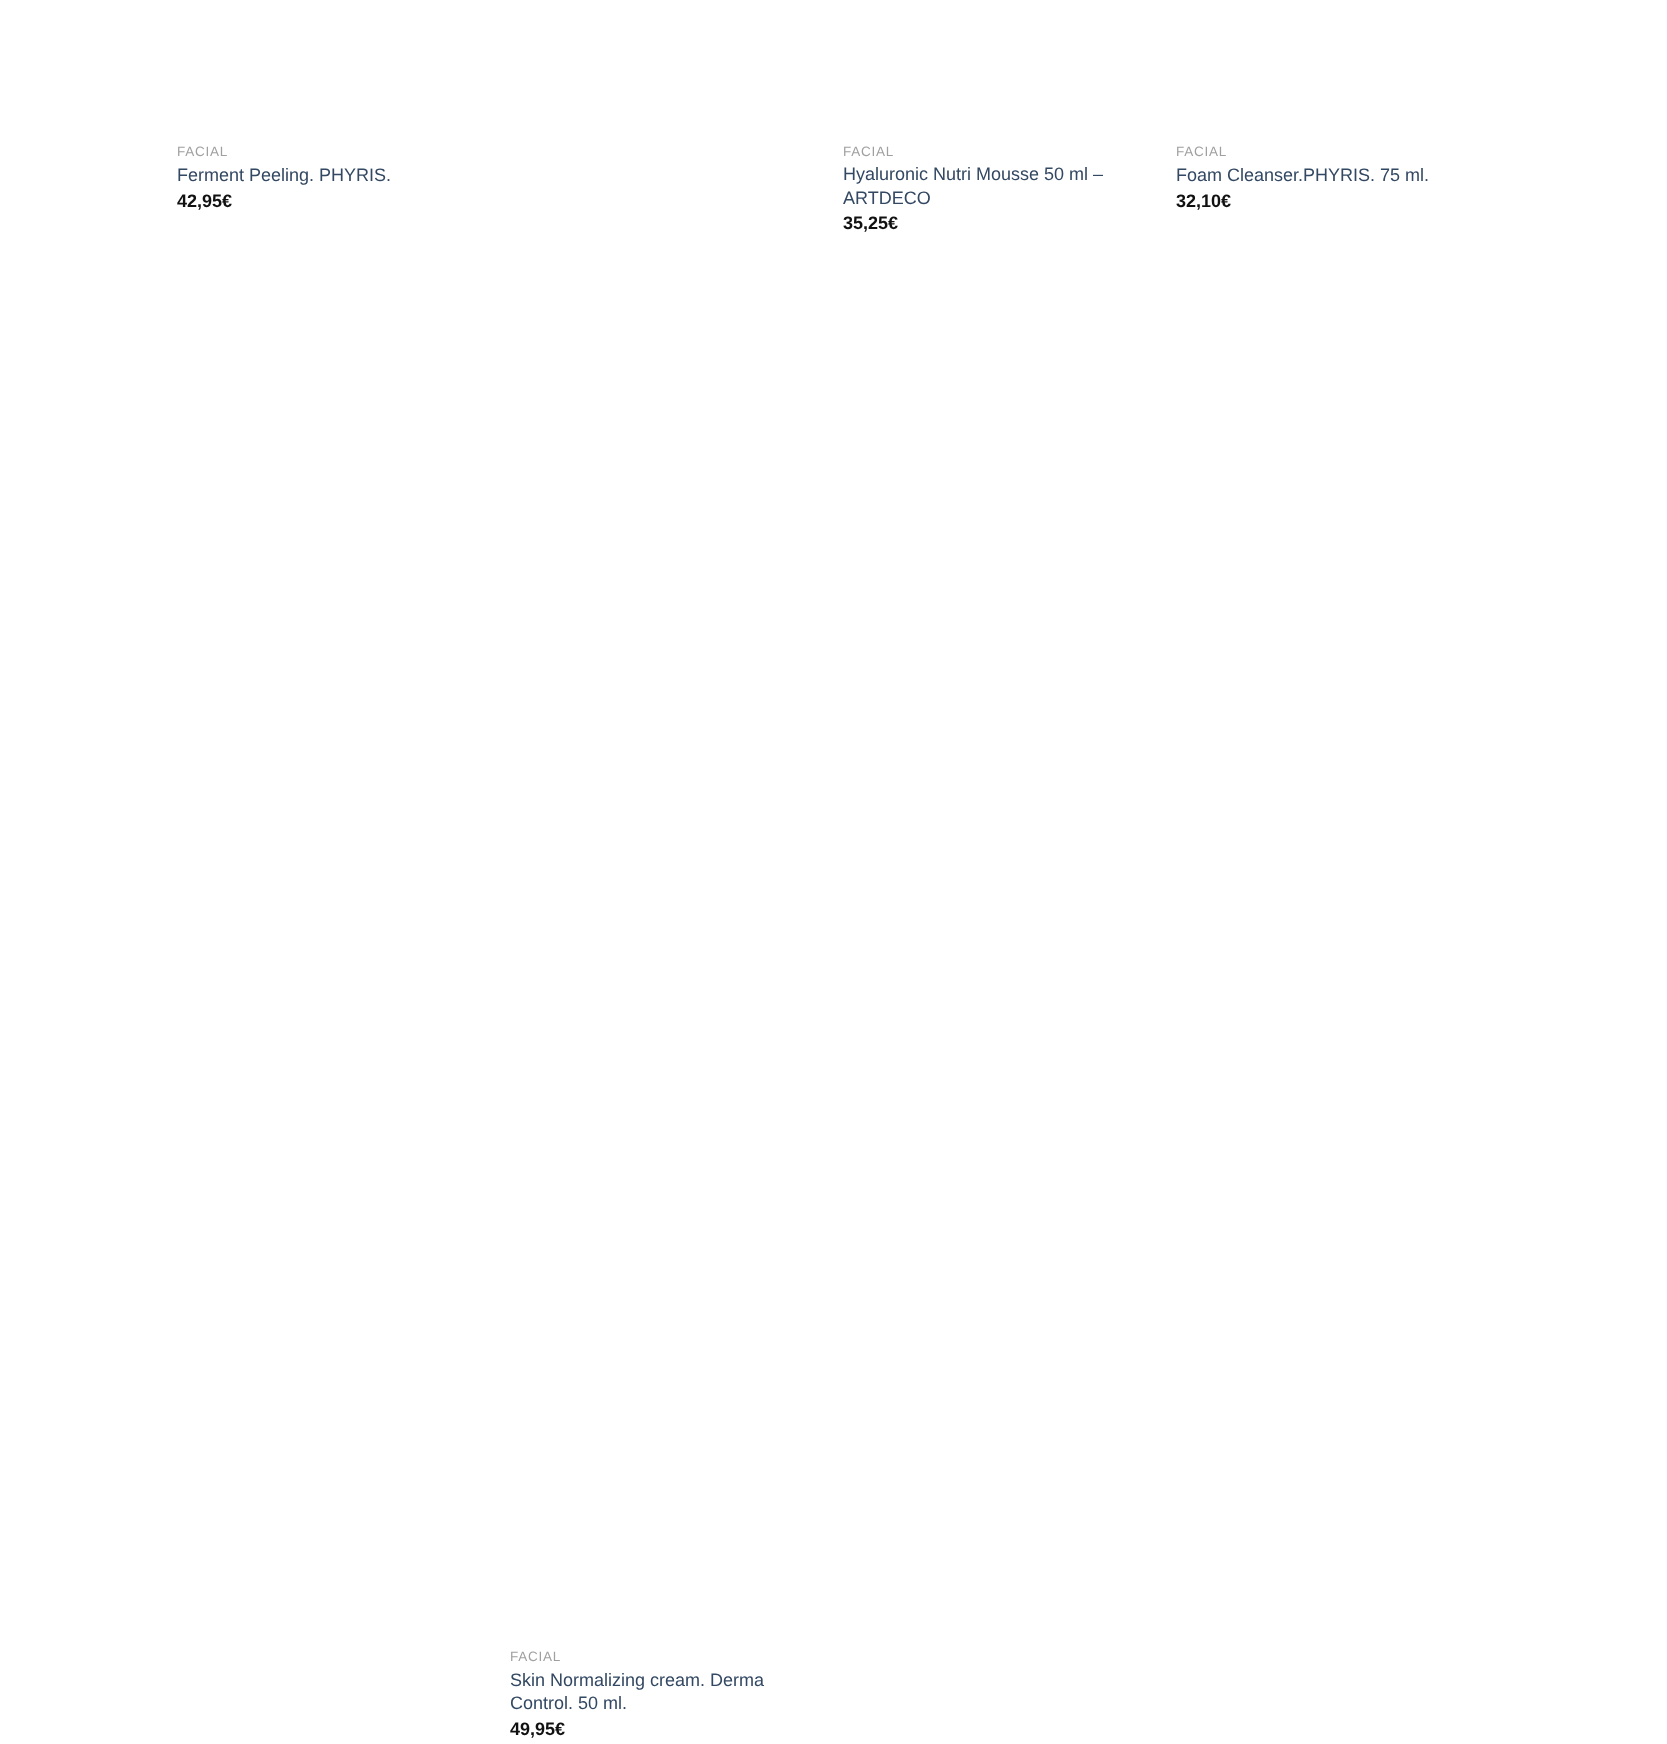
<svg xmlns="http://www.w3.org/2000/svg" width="1667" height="1744">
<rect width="100%" height="100%" fill="#fff"/>
<text x="177" y="156" style="font-family:Liberation Sans;font-size:13.5px;letter-spacing:0.75px;fill:#a0a0a0">FACIAL</text>
<text x="177" y="181" style="font-family:Liberation Sans;font-size:18px;fill:#334862">Ferment Peeling. PHYRIS.</text>
<text x="177" y="207" style="font-family:Liberation Sans;font-size:18px;font-weight:bold;fill:#111">42,95€</text>
<text x="843" y="156" style="font-family:Liberation Sans;font-size:13.5px;letter-spacing:0.75px;fill:#a0a0a0">FACIAL</text>
<text x="843" y="180" style="font-family:Liberation Sans;font-size:18px;fill:#334862">Hyaluronic Nutri Mousse 50 ml –</text>
<text x="843" y="204" style="font-family:Liberation Sans;font-size:18px;fill:#334862">ARTDECO</text>
<text x="843" y="229" style="font-family:Liberation Sans;font-size:18px;font-weight:bold;fill:#111">35,25€</text>
<text x="1176" y="156" style="font-family:Liberation Sans;font-size:13.5px;letter-spacing:0.75px;fill:#a0a0a0">FACIAL</text>
<text x="1176" y="181" style="font-family:Liberation Sans;font-size:18px;fill:#334862">Foam Cleanser.PHYRIS. 75 ml.</text>
<text x="1176" y="207" style="font-family:Liberation Sans;font-size:18px;font-weight:bold;fill:#111">32,10€</text>
<text x="510" y="1661" style="font-family:Liberation Sans;font-size:13.5px;letter-spacing:0.75px;fill:#a0a0a0">FACIAL</text>
<text x="510" y="1686" style="font-family:Liberation Sans;font-size:18px;fill:#334862">Skin Normalizing cream. Derma</text>
<text x="510" y="1709" style="font-family:Liberation Sans;font-size:18px;fill:#334862">Control. 50 ml.</text>
<text x="510" y="1735" style="font-family:Liberation Sans;font-size:18px;font-weight:bold;fill:#111">49,95€</text>
</svg>
